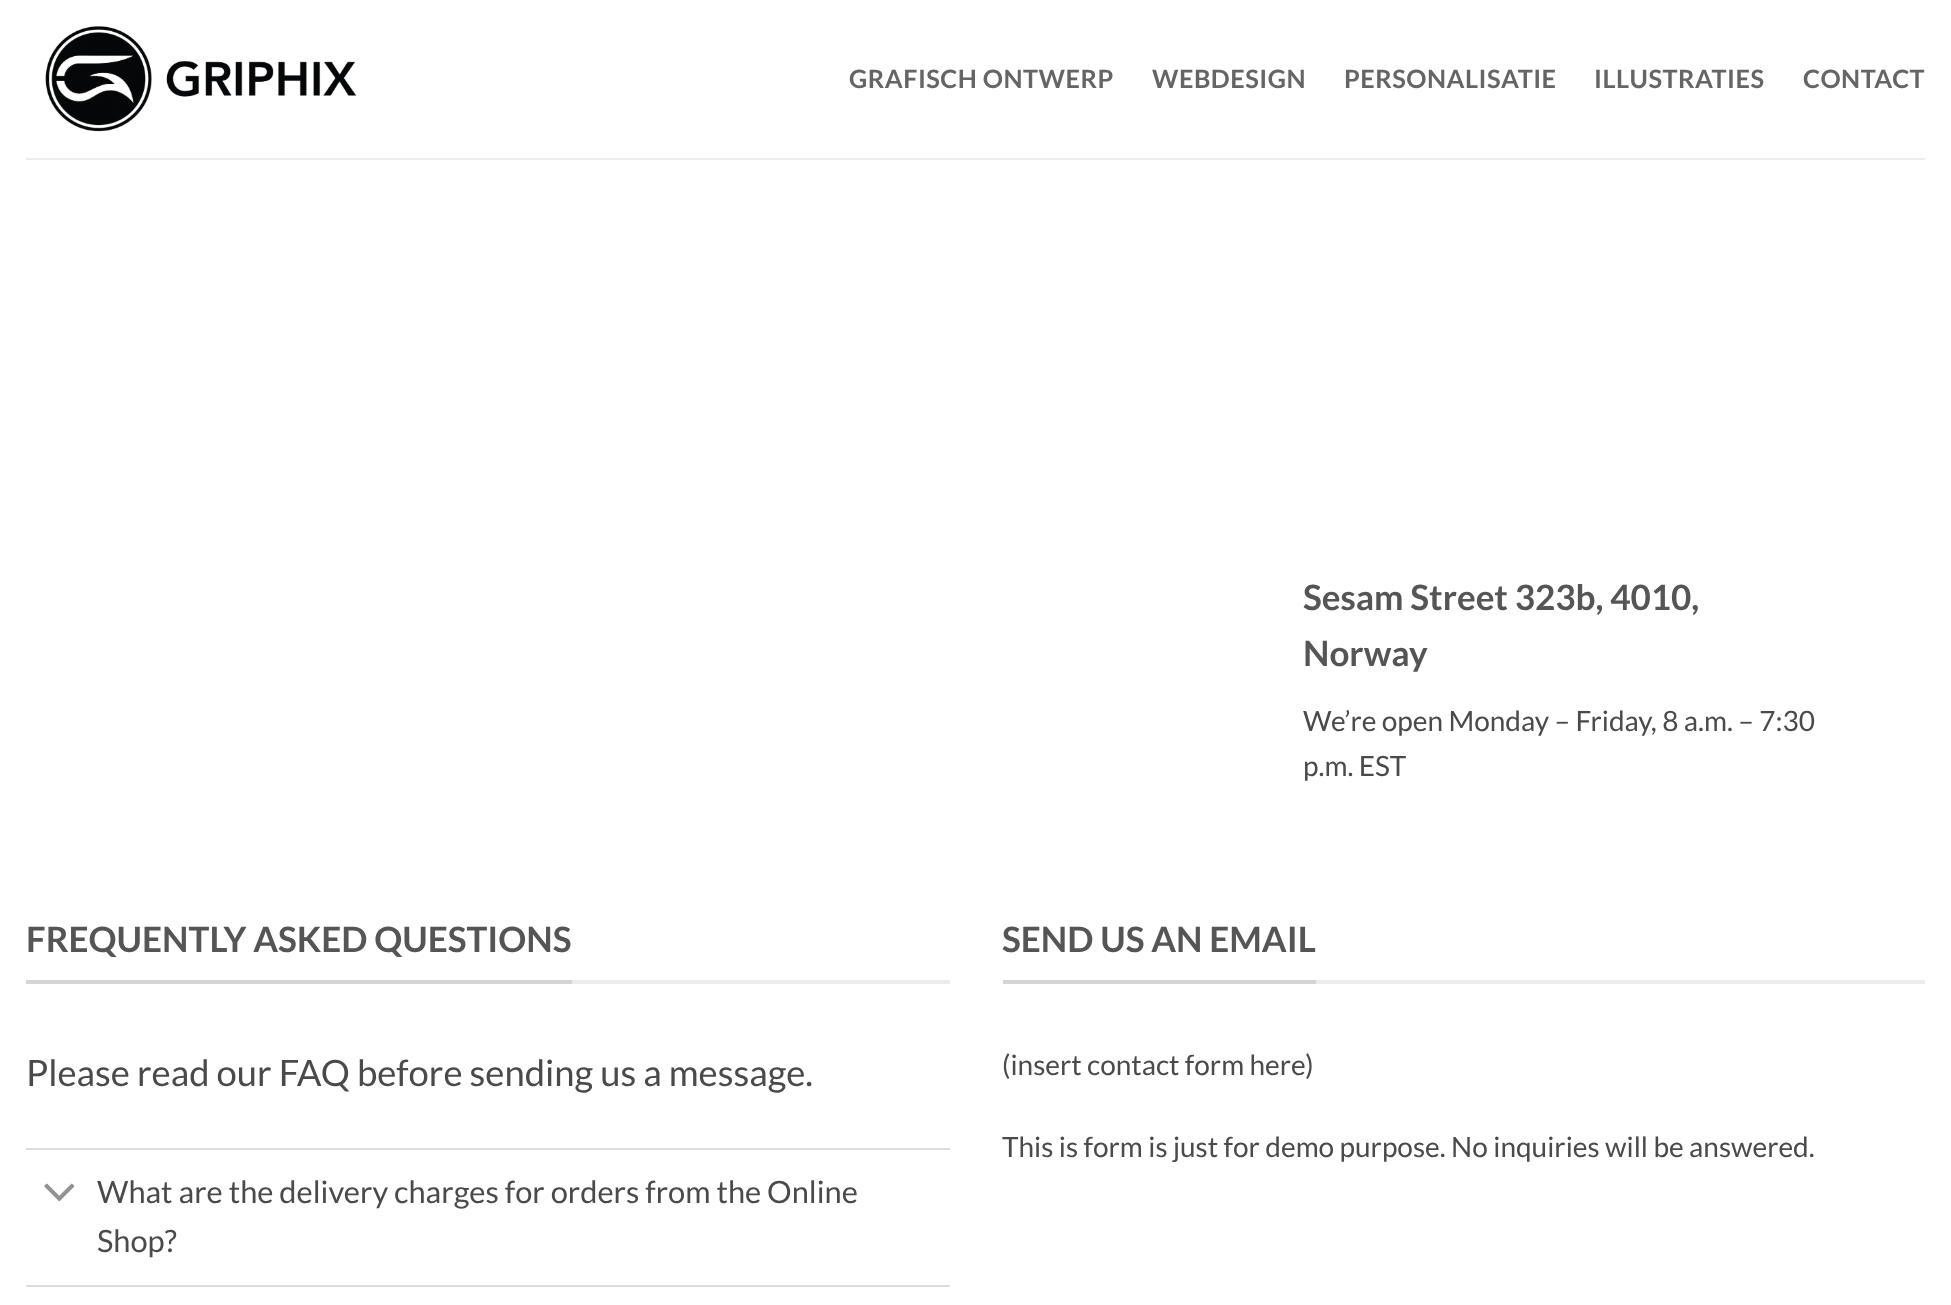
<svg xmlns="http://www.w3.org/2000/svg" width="1951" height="1305">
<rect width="100%" height="100%" fill="#fff"/>
<image x="45" y="26" width="312" height="106" href="media/1.png"/>
<text x="849" y="88" style="font-family:Lato;font-size:25.25px;font-weight:bold;letter-spacing:0.5px;fill:#656565">GRAFISCH ONTWERP</text>
<text x="1152" y="88" style="font-family:Lato;font-size:25.25px;font-weight:bold;letter-spacing:0.5px;fill:#656565">WEBDESIGN</text>
<text x="1344" y="88" style="font-family:Lato;font-size:25.25px;font-weight:bold;letter-spacing:0.5px;fill:#656565">PERSONALISATIE</text>
<text x="1594" y="88" style="font-family:Lato;font-size:25.25px;font-weight:bold;letter-spacing:0.5px;fill:#656565">ILLUSTRATIES</text>
<text x="1803" y="88" style="font-family:Lato;font-size:25.25px;font-weight:bold;letter-spacing:0.5px;fill:#656565">CONTACT</text>
<rect x="26" y="158" width="1899" height="2" fill="#ededed"/>
<text x="1303" y="610" style="font-family:Lato;font-size:35px;font-weight:bold;fill:#555">Sesam Street 323b, 4010,</text>
<text x="1303" y="666" style="font-family:Lato;font-size:35px;font-weight:bold;fill:#555">Norway</text>
<text x="1303" y="731" style="font-family:Lato;font-size:28px;fill:#4a4a4a">We’re open Monday – Friday, 8 a.m. – 7:30</text>
<text x="1303" y="776" style="font-family:Lato;font-size:28px;fill:#4a4a4a">p.m. EST</text>
<rect x="572" y="980" width="378" height="4" fill="#ececec"/>
<rect x="26" y="980" width="546" height="4" fill="#d4d4d4"/>
<text x="26" y="952" style="font-family:Lato;font-size:35px;font-weight:bold;fill:#555">FREQUENTLY ASKED QUESTIONS</text>
<text x="26" y="1086" style="font-family:Lato;font-size:36.4px;fill:#4a4a4a">Please read our FAQ before sending us a message.</text>
<rect x="26" y="1148" width="924" height="2" fill="#ddd"/>
<image x="44" y="1183" width="31" height="19" href="media/2.png"/>
<text x="97" y="1203" style="font-family:Lato;font-size:30.8px;fill:#4a4a4a">What are the delivery charges for orders from the Online</text>
<text x="97" y="1252" style="font-family:Lato;font-size:30.8px;fill:#4a4a4a">Shop?</text>
<rect x="26" y="1285" width="924" height="2" fill="#ddd"/>
<rect x="1316" y="980" width="609" height="4" fill="#ececec"/>
<rect x="1003" y="980" width="313" height="4" fill="#d4d4d4"/>
<text x="1002" y="952" style="font-family:Lato;font-size:35px;font-weight:bold;fill:#555">SEND US AN EMAIL</text>
<text x="1002" y="1075" style="font-family:Lato;font-size:28px;fill:#4a4a4a">(insert contact form here)</text>
<text x="1002" y="1157" style="font-family:Lato;font-size:28px;fill:#4a4a4a">This is form is just for demo purpose. No inquiries will be answered.</text>
</svg>
